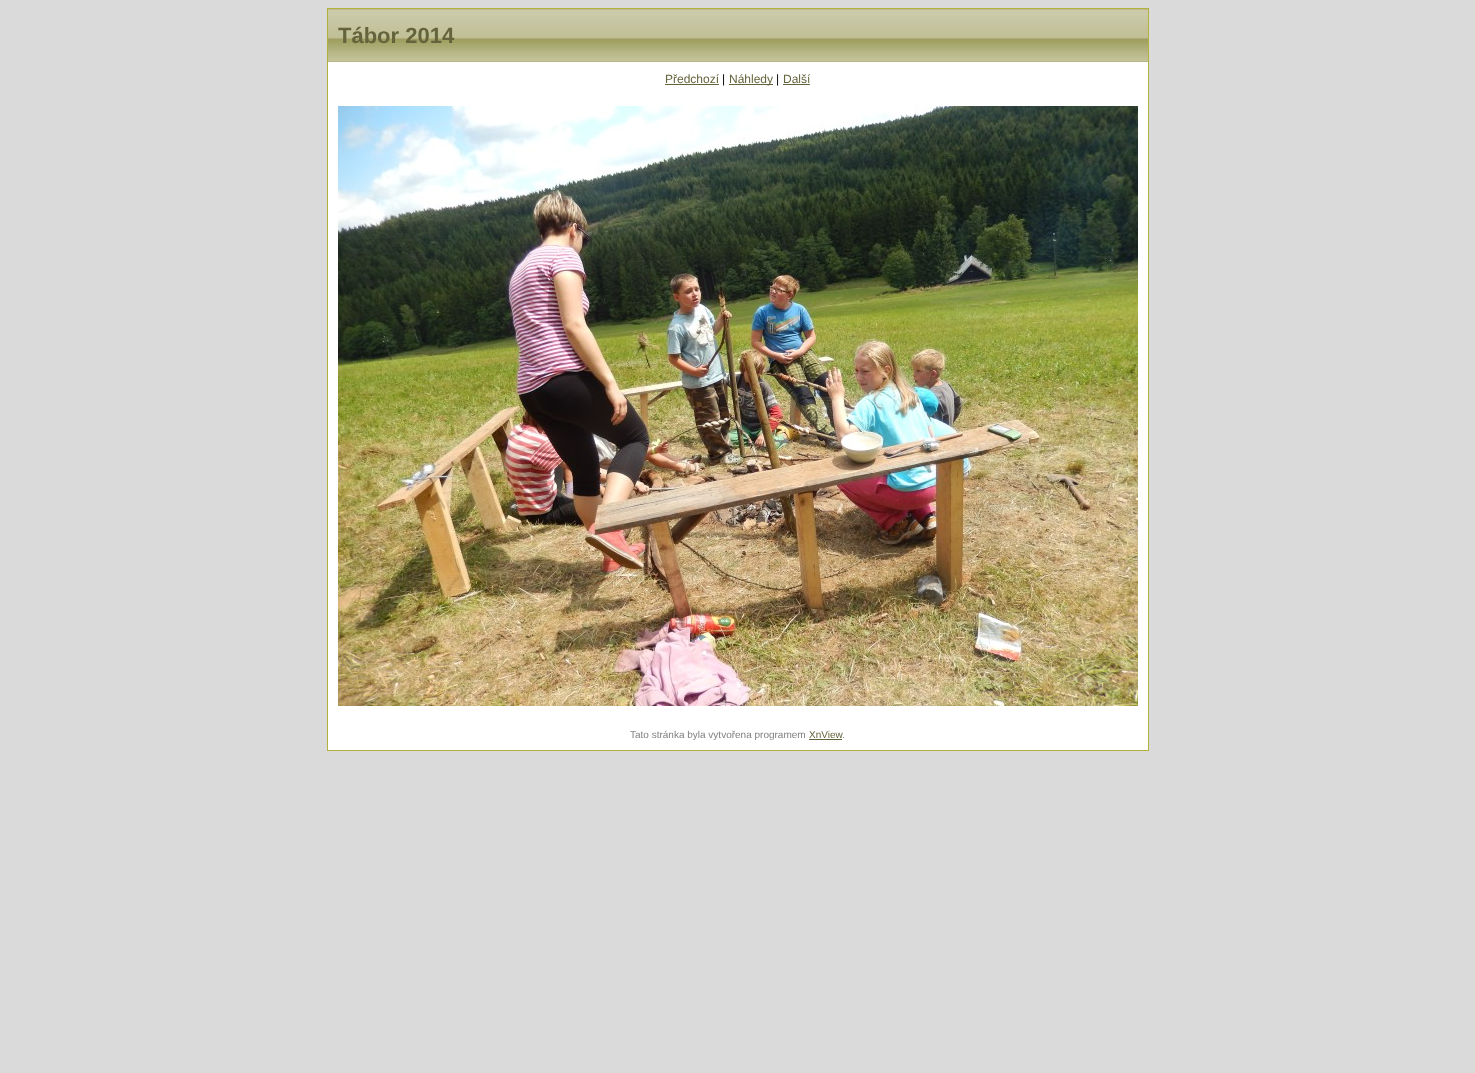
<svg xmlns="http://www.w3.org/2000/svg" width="1475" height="1073">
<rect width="100%" height="100%" fill="#dadada"/>
<rect x="328" y="62" width="820" height="688" fill="#fff"/>
<rect x="327" y="8" width="822" height="1" fill="#b1b13c"/>
<rect x="1148" y="8" width="1" height="743" fill="#b1b13c"/>
<rect x="327" y="750" width="822" height="1" fill="#b1b13c"/>
<rect x="327" y="8" width="1" height="743" fill="#b1b13c"/>
<image x="328" y="9" width="820" height="53" href="media/1.png"/>
<text x="338" y="43" style="font-family:Liberation Sans;font-size:22px;font-weight:bold;fill:#64643c">Tábor 2014</text>
<text x="665" y="83" style="font-family:Liberation Sans;font-size:12px;fill:#64643c">Předchozí</text>
<rect x="665" y="84" width="54" height="1" fill="#64643c"/>
<text x="722" y="83" style="font-family:Liberation Sans;font-size:12px;fill:#000">|</text>
<rect x="729" y="84" width="44" height="1" fill="#64643c"/>
<text x="729" y="83" style="font-family:Liberation Sans;font-size:12px;fill:#64643c">Náhledy</text>
<text x="776" y="83" style="font-family:Liberation Sans;font-size:12px;fill:#000">|</text>
<text x="783" y="83" style="font-family:Liberation Sans;font-size:12px;fill:#64643c">Další</text>
<rect x="783" y="84" width="27" height="1" fill="#64643c"/>
<image x="338" y="106" width="800" height="600" href="media/2.png"/>
<text x="630" y="738" style="font-family:Liberation Sans;font-size:10px;fill:#808080">Tato stránka byla vytvořena programem</text>
<text x="809" y="738" style="font-family:Liberation Sans;font-size:10px;fill:#64643c">XnView</text>
<rect x="809" y="739" width="33" height="1" fill="#64643c"/>
<text x="842" y="738" style="font-family:Liberation Sans;font-size:10px;fill:#808080">.</text>
</svg>
